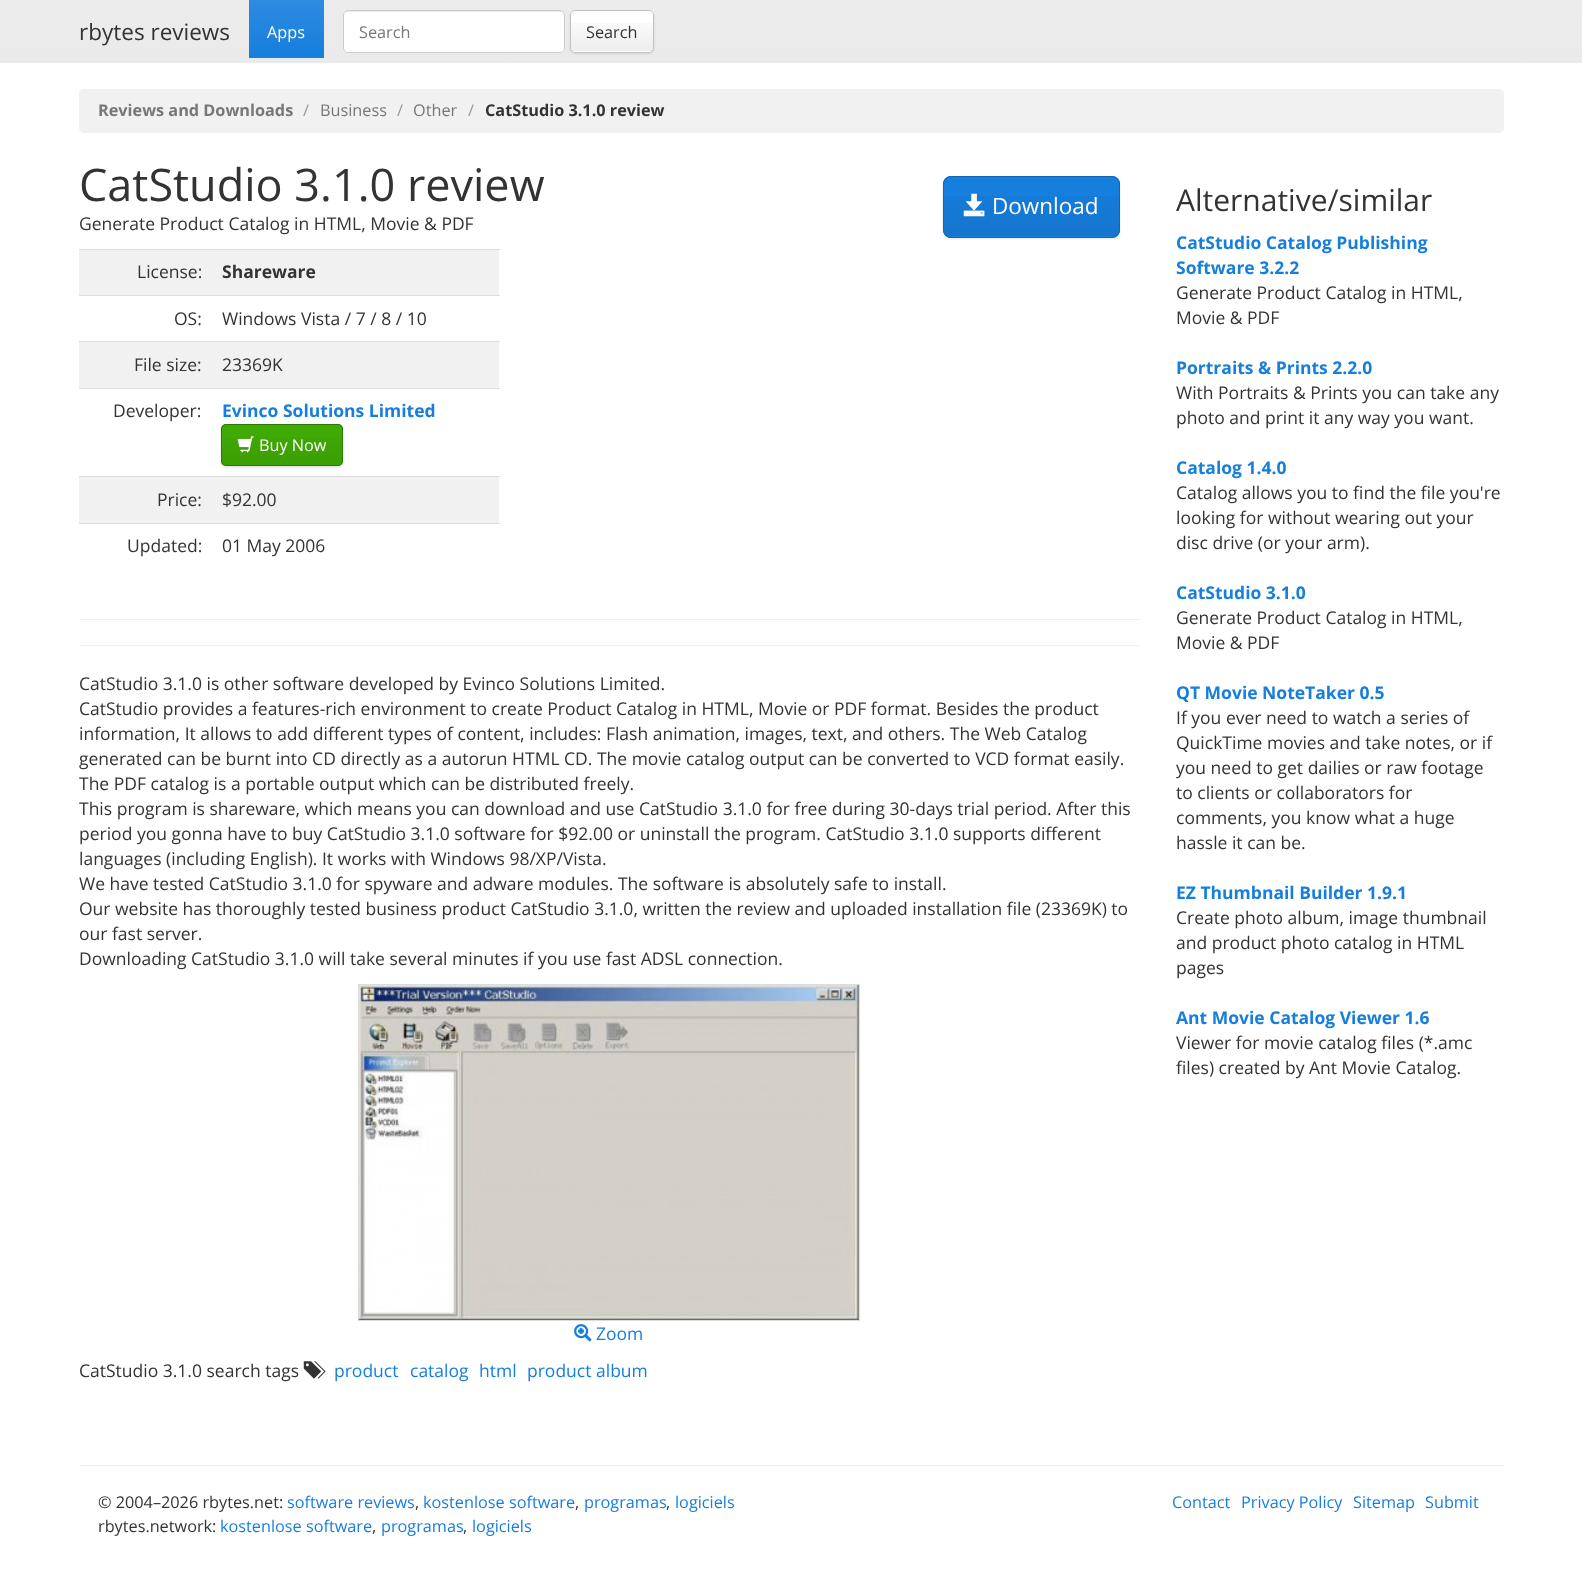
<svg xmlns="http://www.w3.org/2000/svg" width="1582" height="1569">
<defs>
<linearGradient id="g1" gradientUnits="userSpaceOnUse" x1="791" y1="0" x2="791" y2="63"><stop offset="0" stop-color="#ececec"/><stop offset="1" stop-color="#eaeaea"/></linearGradient>
<linearGradient id="g2" gradientUnits="userSpaceOnUse" x1="286" y1="0" x2="286" y2="58"><stop offset="0" stop-color="#2d8be0"/><stop offset="1" stop-color="#167edd"/></linearGradient>
<linearGradient id="g3" gradientUnits="userSpaceOnUse" x1="612" y1="11" x2="612" y2="51"><stop offset="0" stop-color="#000" stop-opacity="0"/><stop offset="1" stop-color="#000" stop-opacity="0.07"/></linearGradient>
<clipPath id="clip1"><rect x="943" y="176" width="177" height="62" rx="8"/></clipPath>
<linearGradient id="g4" gradientUnits="userSpaceOnUse" x1="1031" y1="178" x2="1031" y2="236"><stop offset="0" stop-color="#000" stop-opacity="0"/><stop offset="1" stop-color="#000" stop-opacity="0.07"/></linearGradient>
<linearGradient id="g5" gradientUnits="userSpaceOnUse" x1="282" y1="425" x2="282" y2="465"><stop offset="0" stop-color="#000" stop-opacity="0"/><stop offset="1" stop-color="#000" stop-opacity="0.07"/></linearGradient>
</defs>
<rect width="100%" height="100%" fill="#fff"/>
<rect width="1582" height="63" fill="url(#g1)"/>
<text x="79" y="40" style="font-family:Open Sans;font-size:22.5px;fill:#333">rbytes reviews</text>
<rect x="249" width="75" height="58" fill="url(#g2)"/>
<text x="267" y="38" style="font-family:Open Sans;font-size:16.25px;fill:#fff">Apps</text>
<rect x="343" y="10" width="222" height="43" rx="5" fill="#fff"/>
<path d="M348 12h212c2 0 4 2 4 4c0-3-1-5-4-5h-214c-2 1-2 3-2 5c0-2 1-4 4-4z" fill="#ececec"/>
<rect x="343.5" y="10.5" width="221" height="42" rx="4.5" fill="none" stroke="#ccc"/>
<text x="359" y="38" style="font-family:Open Sans;font-size:16.25px;fill:#777">Search</text>
<rect x="570" y="11" width="84" height="43" rx="5" fill="#0000001a" filter="blur(1px)"/>
<rect x="570" y="10" width="84" height="43" rx="5" fill="#fff"/>
<rect x="570" y="23" width="84" height="28" fill="url(#g3)"/>
<rect x="570.5" y="10.5" width="83" height="42" rx="4.5" fill="none" stroke="#c2c2c2"/>
<text x="586" y="38" style="font-family:Open Sans;font-size:16.25px;fill:#333">Search</text>
<rect x="79" y="89" width="1425" height="44" rx="5" fill="#f1f1f1"/>
<text x="98" y="116" style="font-family:Open Sans;font-size:16.25px;font-weight:bold;fill:#777">Reviews and Downloads</text>
<text x="303" y="116" style="font-family:Open Sans;font-size:16.25px;fill:#999">/</text>
<text x="320" y="116" style="font-family:Open Sans;font-size:16.25px;fill:#777">Business</text>
<text x="397" y="116" style="font-family:Open Sans;font-size:16.25px;fill:#999">/</text>
<text x="413" y="116" style="font-family:Open Sans;font-size:16.25px;fill:#777">Other</text>
<text x="468" y="116" style="font-family:Open Sans;font-size:16.25px;fill:#999">/</text>
<text x="485" y="116" style="font-family:Open Sans;font-size:16.25px;font-weight:bold;fill:#333">CatStudio 3.1.0 review</text>
<text x="79" y="201" style="font-family:Open Sans;font-size:45px;fill:#333">CatStudio 3.1.0 review</text>
<rect x="943" y="178" width="177" height="61" rx="8" fill="#0000001a" filter="blur(1px)"/>
<rect x="943" y="176" width="177" height="62" rx="8" fill="#167edd"/>
<g clip-path="url(#clip1)">
<rect x="943" y="196" width="177" height="40" fill="url(#g4)"/>
</g>
<rect x="943.5" y="176.5" width="176" height="61" rx="7.5" fill="none" stroke="#1164af"/>
<image x="963" y="193" width="22" height="24" href="media/1.png"/>
<text x="992" y="214" style="font-family:Open Sans;font-size:22.5px;fill:#fff">Download</text>
<text x="79" y="230" style="font-family:Open Sans;font-size:17.5px;fill:#333">Generate Product Catalog in HTML, Movie &amp; PDF</text>
<rect x="79" y="250" width="420" height="45" fill="#f1f1f1"/>
<text x="137" y="278" style="font-family:Open Sans;font-size:17.5px;fill:#333">License:</text>
<rect x="79" y="249" width="421" height="1" fill="#ddd"/>
<text x="222" y="278" style="font-family:Open Sans;font-size:17.5px;font-weight:bold;fill:#333">Shareware</text>
<text x="174" y="325" style="font-family:Open Sans;font-size:17.5px;fill:#333">OS:</text>
<rect x="79" y="295" width="421" height="1" fill="#ddd"/>
<text x="222" y="325" style="font-family:Open Sans;font-size:17.5px;fill:#333">Windows Vista / 7 / 8 / 10</text>
<rect x="79" y="342" width="420" height="46" fill="#f1f1f1"/>
<text x="134" y="371" style="font-family:Open Sans;font-size:17.5px;fill:#333">File size:</text>
<rect x="79" y="341" width="421" height="1" fill="#ddd"/>
<text x="222" y="371" style="font-family:Open Sans;font-size:17.5px;fill:#333">23369K</text>
<text x="113" y="417" style="font-family:Open Sans;font-size:17.5px;fill:#333">Developer:</text>
<rect x="79" y="388" width="421" height="1" fill="#ddd"/>
<text x="222" y="417" style="font-family:Open Sans;font-size:17.5px;font-weight:bold;fill:#167edd">Evinco Solutions Limited</text>
<rect x="221" y="425" width="122" height="43" rx="5" fill="#0000001a" filter="blur(1px)"/>
<rect x="221" y="424" width="122" height="42" rx="5" fill="#40aa04"/>
<rect x="221" y="437" width="122" height="28" fill="url(#g5)"/>
<rect x="221.5" y="424.5" width="121" height="41" rx="4.5" fill="none" stroke="#2d7803"/>
<image x="237" y="436" width="17" height="17" href="media/2.png"/>
<text x="259" y="451" style="font-family:Open Sans;font-size:16.25px;fill:#fff">Buy Now</text>
<rect x="79" y="477" width="420" height="46" fill="#f1f1f1"/>
<text x="157" y="506" style="font-family:Open Sans;font-size:17.5px;fill:#333">Price:</text>
<rect x="79" y="476" width="421" height="1" fill="#ddd"/>
<text x="222" y="506" style="font-family:Open Sans;font-size:17.5px;fill:#333">$92.00</text>
<text x="127" y="552" style="font-family:Open Sans;font-size:17.5px;fill:#333">Updated:</text>
<rect x="79" y="523" width="421" height="1" fill="#ddd"/>
<text x="222" y="552" style="font-family:Open Sans;font-size:17.5px;fill:#333">01 May 2006</text>
<rect x="79" y="619" width="1060" height="1" fill="#f1f1f1"/>
<rect x="79" y="645" width="1060" height="1" fill="#f1f1f1"/>
<text x="79" y="690" style="font-family:Open Sans;font-size:17.5px;fill:#333">CatStudio 3.1.0 is other software developed by Evinco Solutions Limited.</text>
<text x="79" y="715" style="font-family:Open Sans;font-size:17.5px;fill:#333">CatStudio provides a features-rich environment to create Product Catalog in HTML, Movie or PDF format. Besides the product</text>
<text x="79" y="740" style="font-family:Open Sans;font-size:17.5px;fill:#333">information, It allows to add different types of content, includes: Flash animation, images, text, and others. The Web Catalog</text>
<text x="79" y="765" style="font-family:Open Sans;font-size:17.5px;fill:#333">generated can be burnt into CD directly as a autorun HTML CD. The movie catalog output can be converted to VCD format easily.</text>
<text x="79" y="790" style="font-family:Open Sans;font-size:17.5px;fill:#333">The PDF catalog is a portable output which can be distributed freely.</text>
<text x="79" y="815" style="font-family:Open Sans;font-size:17.5px;fill:#333">This program is shareware, which means you can download and use CatStudio 3.1.0 for free during 30-days trial period. After this</text>
<text x="79" y="840" style="font-family:Open Sans;font-size:17.5px;fill:#333">period you gonna have to buy CatStudio 3.1.0 software for $92.00 or uninstall the program. CatStudio 3.1.0 supports different</text>
<text x="79" y="865" style="font-family:Open Sans;font-size:17.5px;fill:#333">languages (including English). It works with Windows 98/XP/Vista.</text>
<text x="79" y="890" style="font-family:Open Sans;font-size:17.5px;fill:#333">We have tested CatStudio 3.1.0 for spyware and adware modules. The software is absolutely safe to install.</text>
<text x="79" y="915" style="font-family:Open Sans;font-size:17.5px;fill:#333">Our website has thoroughly tested business product CatStudio 3.1.0, written the review and uploaded installation file (23369K) to</text>
<text x="79" y="940" style="font-family:Open Sans;font-size:17.5px;fill:#333">our fast server.</text>
<text x="79" y="965" style="font-family:Open Sans;font-size:17.5px;fill:#333">Downloading CatStudio 3.1.0 will take several minutes if you use fast ADSL connection.</text>
<rect x="358.5" y="984.5" width="501" height="336" fill="none" stroke="#dcdcdc"/>
<image x="358" y="985" width="501" height="335" href="media/3.png"/>
<image x="574" y="1324" width="18" height="18" href="media/4.png"/>
<text x="596" y="1340" style="font-family:Open Sans;font-size:17.5px;fill:#167edd">Zoom</text>
<text x="79" y="1377" style="font-family:Open Sans;font-size:17.5px;fill:#333">CatStudio 3.1.0 search tags</text>
<image x="303" y="1361" width="23" height="18" href="media/5.png"/>
<text x="334" y="1377" style="font-family:Open Sans;font-size:17.5px;fill:#167edd">product</text>
<text x="410" y="1377" style="font-family:Open Sans;font-size:17.5px;fill:#167edd">catalog</text>
<text x="479" y="1377" style="font-family:Open Sans;font-size:17.5px;fill:#167edd">html</text>
<text x="527" y="1377" style="font-family:Open Sans;font-size:17.5px;fill:#167edd">product album</text>
<text x="1176" y="211" style="font-family:Open Sans;font-size:30px;fill:#333">Alternative/similar</text>
<text x="1176" y="249" style="font-family:Open Sans;font-size:17.5px;font-weight:bold;fill:#167edd">CatStudio Catalog Publishing</text>
<text x="1176" y="274" style="font-family:Open Sans;font-size:17.5px;font-weight:bold;fill:#167edd">Software 3.2.2</text>
<text x="1176" y="299" style="font-family:Open Sans;font-size:17.5px;fill:#333">Generate Product Catalog in HTML,</text>
<text x="1176" y="324" style="font-family:Open Sans;font-size:17.5px;fill:#333">Movie &amp; PDF</text>
<text x="1176" y="374" style="font-family:Open Sans;font-size:17.5px;font-weight:bold;fill:#167edd">Portraits &amp; Prints 2.2.0</text>
<text x="1176" y="399" style="font-family:Open Sans;font-size:17.5px;fill:#333">With Portraits &amp; Prints you can take any</text>
<text x="1176" y="424" style="font-family:Open Sans;font-size:17.5px;fill:#333">photo and print it any way you want.</text>
<text x="1176" y="474" style="font-family:Open Sans;font-size:17.5px;font-weight:bold;fill:#167edd">Catalog 1.4.0</text>
<text x="1176" y="499" style="font-family:Open Sans;font-size:17.5px;fill:#333">Catalog allows you to find the file you're</text>
<text x="1176" y="524" style="font-family:Open Sans;font-size:17.5px;fill:#333">looking for without wearing out your</text>
<text x="1176" y="549" style="font-family:Open Sans;font-size:17.5px;fill:#333">disc drive (or your arm).</text>
<text x="1176" y="599" style="font-family:Open Sans;font-size:17.5px;font-weight:bold;fill:#167edd">CatStudio 3.1.0</text>
<text x="1176" y="624" style="font-family:Open Sans;font-size:17.5px;fill:#333">Generate Product Catalog in HTML,</text>
<text x="1176" y="649" style="font-family:Open Sans;font-size:17.5px;fill:#333">Movie &amp; PDF</text>
<text x="1176" y="699" style="font-family:Open Sans;font-size:17.5px;font-weight:bold;fill:#167edd">QT Movie NoteTaker 0.5</text>
<text x="1176" y="724" style="font-family:Open Sans;font-size:17.5px;fill:#333">If you ever need to watch a series of</text>
<text x="1176" y="749" style="font-family:Open Sans;font-size:17.5px;fill:#333">QuickTime movies and take notes, or if</text>
<text x="1176" y="774" style="font-family:Open Sans;font-size:17.5px;fill:#333">you need to get dailies or raw footage</text>
<text x="1176" y="799" style="font-family:Open Sans;font-size:17.5px;fill:#333">to clients or collaborators for</text>
<text x="1176" y="824" style="font-family:Open Sans;font-size:17.5px;fill:#333">comments, you know what a huge</text>
<text x="1176" y="849" style="font-family:Open Sans;font-size:17.5px;fill:#333">hassle it can be.</text>
<text x="1176" y="899" style="font-family:Open Sans;font-size:17.5px;font-weight:bold;fill:#167edd">EZ Thumbnail Builder 1.9.1</text>
<text x="1176" y="924" style="font-family:Open Sans;font-size:17.5px;fill:#333">Create photo album, image thumbnail</text>
<text x="1176" y="949" style="font-family:Open Sans;font-size:17.5px;fill:#333">and product photo catalog in HTML</text>
<text x="1176" y="974" style="font-family:Open Sans;font-size:17.5px;fill:#333">pages</text>
<text x="1176" y="1024" style="font-family:Open Sans;font-size:17.5px;font-weight:bold;fill:#167edd">Ant Movie Catalog Viewer 1.6</text>
<text x="1176" y="1049" style="font-family:Open Sans;font-size:17.5px;fill:#333">Viewer for movie catalog files (*.amc</text>
<text x="1176" y="1074" style="font-family:Open Sans;font-size:17.5px;fill:#333">files) created by Ant Movie Catalog.</text>
<rect x="79" y="1465" width="1425" height="1" fill="#f1f1f1"/>
<text x="98" y="1508" style="font-family:Open Sans;font-size:16.25px;fill:#333">© 2004–2026 rbytes.net:</text>
<text x="287" y="1508" style="font-family:Open Sans;font-size:16.25px;fill:#167edd">software reviews</text>
<text x="415" y="1508" style="font-family:Open Sans;font-size:16.25px;fill:#333">,</text>
<text x="423" y="1508" style="font-family:Open Sans;font-size:16.25px;fill:#167edd">kostenlose software</text>
<text x="575" y="1508" style="font-family:Open Sans;font-size:16.25px;fill:#333">,</text>
<text x="584" y="1508" style="font-family:Open Sans;font-size:16.25px;fill:#167edd">programas</text>
<text x="666" y="1508" style="font-family:Open Sans;font-size:16.25px;fill:#333">,</text>
<text x="675" y="1508" style="font-family:Open Sans;font-size:16.25px;fill:#167edd">logiciels</text>
<text x="98" y="1532" style="font-family:Open Sans;font-size:16.25px;fill:#333">rbytes.network:</text>
<text x="220" y="1532" style="font-family:Open Sans;font-size:16.25px;fill:#167edd">kostenlose software</text>
<text x="372" y="1532" style="font-family:Open Sans;font-size:16.25px;fill:#333">,</text>
<text x="381" y="1532" style="font-family:Open Sans;font-size:16.25px;fill:#167edd">programas</text>
<text x="463" y="1532" style="font-family:Open Sans;font-size:16.25px;fill:#333">,</text>
<text x="472" y="1532" style="font-family:Open Sans;font-size:16.25px;fill:#167edd">logiciels</text>
<text x="1172" y="1508" style="font-family:Open Sans;font-size:16.25px;fill:#167edd">Contact</text>
<text x="1241" y="1508" style="font-family:Open Sans;font-size:16.25px;fill:#167edd">Privacy Policy</text>
<text x="1353" y="1508" style="font-family:Open Sans;font-size:16.25px;fill:#167edd">Sitemap</text>
<text x="1425" y="1508" style="font-family:Open Sans;font-size:16.25px;fill:#167edd">Submit</text>
</svg>
